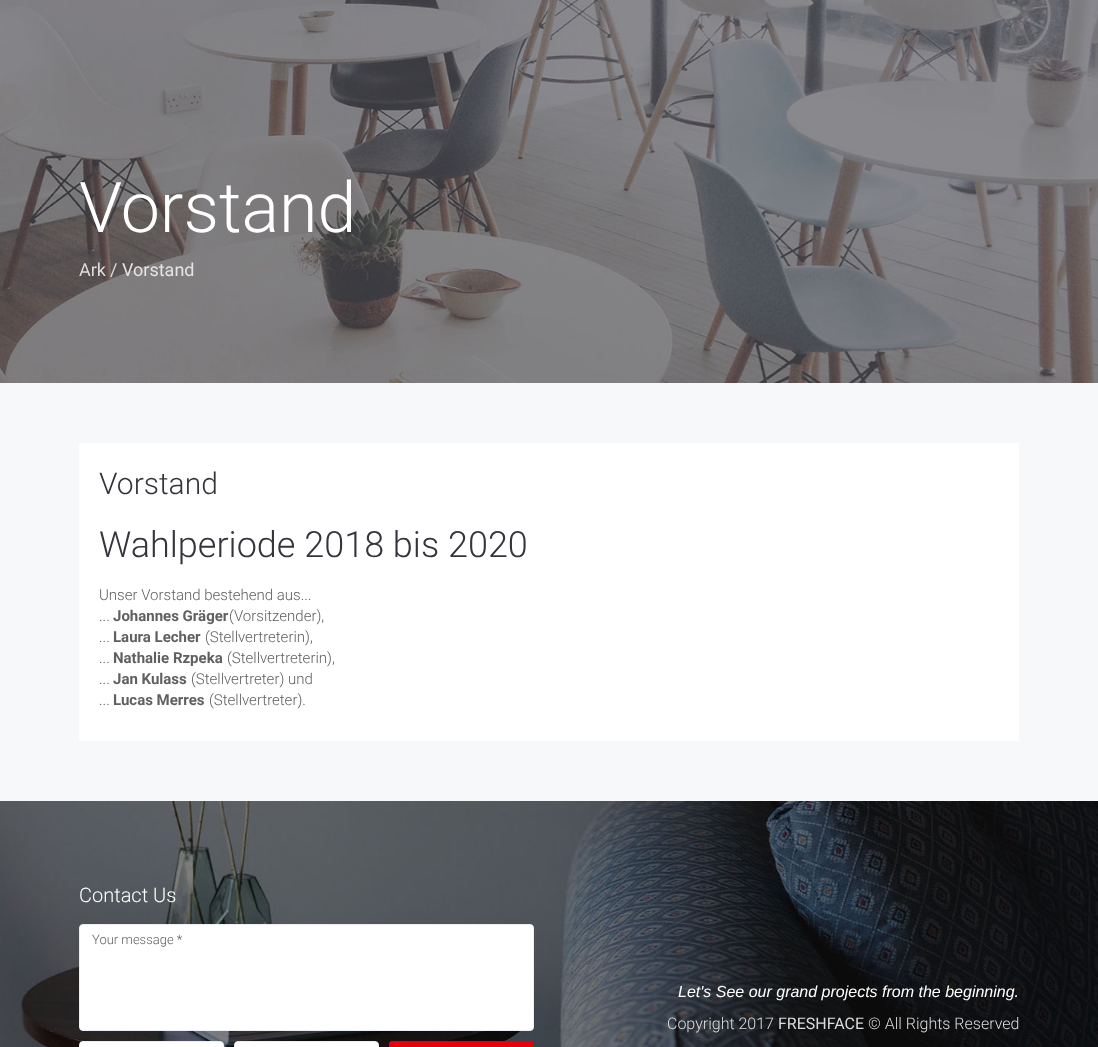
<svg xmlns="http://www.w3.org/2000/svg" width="1098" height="1047">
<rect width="100%" height="100%" fill="#fff"/>
<image x="0" y="0" width="1098" height="383" href="media/1.png"/>
<text x="79" y="232" style="font-family:Roboto;font-size:70px;font-weight:300;fill:#fff">Vorstand</text>
<text x="79" y="276" style="font-family:Roboto;font-size:18px;fill:#dddcdc">Ark</text>
<text x="110" y="276" style="font-family:Roboto;font-size:18px;fill:#dddcdc">/</text>
<text x="122" y="276" style="font-family:Roboto;font-size:18px;fill:#e5e4e4">Vorstand</text>
<rect y="383" width="1098" height="418" fill="#f7f8fa"/>
<rect x="79" y="443" width="940" height="298" fill="#fff"/>
<text x="99" y="494" style="font-family:Roboto;font-size:30px;font-weight:300;fill:#34343c">Vorstand</text>
<text x="99" y="557" style="font-family:Roboto;font-size:36px;font-weight:300;fill:#34343c">Wahlperiode 2018 bis 2020</text>
<text x="99" y="600" style="font-family:Roboto;font-size:15px;font-weight:300;fill:#606060">Unser Vorstand bestehend aus...</text>
<text x="99" y="621" style="font-family:Roboto;font-size:15px;font-weight:300;fill:#606060">...</text>
<text x="113" y="621" style="font-family:Roboto;font-size:15px;font-weight:bold;fill:#606060">Johannes Gräger</text>
<text x="229" y="621" style="font-family:Roboto;font-size:15px;font-weight:300;fill:#606060">(Vorsitzender),</text>
<text x="99" y="642" style="font-family:Roboto;font-size:15px;font-weight:300;fill:#606060">...</text>
<text x="113" y="642" style="font-family:Roboto;font-size:15px;font-weight:bold;fill:#606060">Laura Lecher</text>
<text x="205" y="642" style="font-family:Roboto;font-size:15px;font-weight:300;fill:#606060">(Stellvertreterin),</text>
<text x="99" y="663" style="font-family:Roboto;font-size:15px;font-weight:300;fill:#606060">...</text>
<text x="113" y="663" style="font-family:Roboto;font-size:15px;font-weight:bold;fill:#606060">Nathalie Rzpeka</text>
<text x="227" y="663" style="font-family:Roboto;font-size:15px;font-weight:300;fill:#606060">(Stellvertreterin),</text>
<text x="99" y="684" style="font-family:Roboto;font-size:15px;font-weight:300;fill:#606060">...</text>
<text x="113" y="684" style="font-family:Roboto;font-size:15px;font-weight:bold;fill:#606060">Jan Kulass</text>
<text x="191" y="684" style="font-family:Roboto;font-size:15px;font-weight:300;fill:#606060">(Stellvertreter) und</text>
<text x="99" y="705" style="font-family:Roboto;font-size:15px;font-weight:300;fill:#606060">...</text>
<text x="113" y="705" style="font-family:Roboto;font-size:15px;font-weight:bold;fill:#606060">Lucas Merres</text>
<text x="209" y="705" style="font-family:Roboto;font-size:15px;font-weight:300;fill:#606060">(Stellvertreter).</text>
<image x="0" y="801" width="1098" height="246" href="media/2.png"/>
<text x="79" y="902" style="font-family:Roboto;font-size:20px;font-weight:300;fill:#fff">Contact Us</text>
<rect x="79.5" y="924.5" width="454" height="106" rx="3.5" fill="#fff" stroke="#ebeef6"/>
<text x="92" y="944" style="font-family:Roboto;font-size:13px;font-weight:300;fill:#606060">Your message *</text>
<rect x="79.5" y="1041.5" width="144" height="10" rx="3.5" fill="#fff" stroke="#ebeef6"/>
<rect x="234.5" y="1041.5" width="144" height="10" rx="3.5" fill="#fff" stroke="#ebeef6"/>
<rect x="389" y="1041" width="145" height="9" rx="3" fill="#e3000f"/>
<text x="678" y="997" style="font-family:Liberation Sans;font-size:16px;font-style:italic;fill:#fff">Let's See our grand projects from the beginning.</text>
<text x="667" y="1029" style="font-family:Roboto;font-size:16px;font-weight:300;fill:#dddcdc">Copyright 2017</text>
<text x="778" y="1029" style="font-family:Roboto;font-size:16px;fill:#dddcdc">FRESHFACE</text>
<text x="868" y="1029" style="font-family:Roboto;font-size:16px;font-weight:300;fill:#dddcdc">© All Rights Reserved</text>
</svg>
